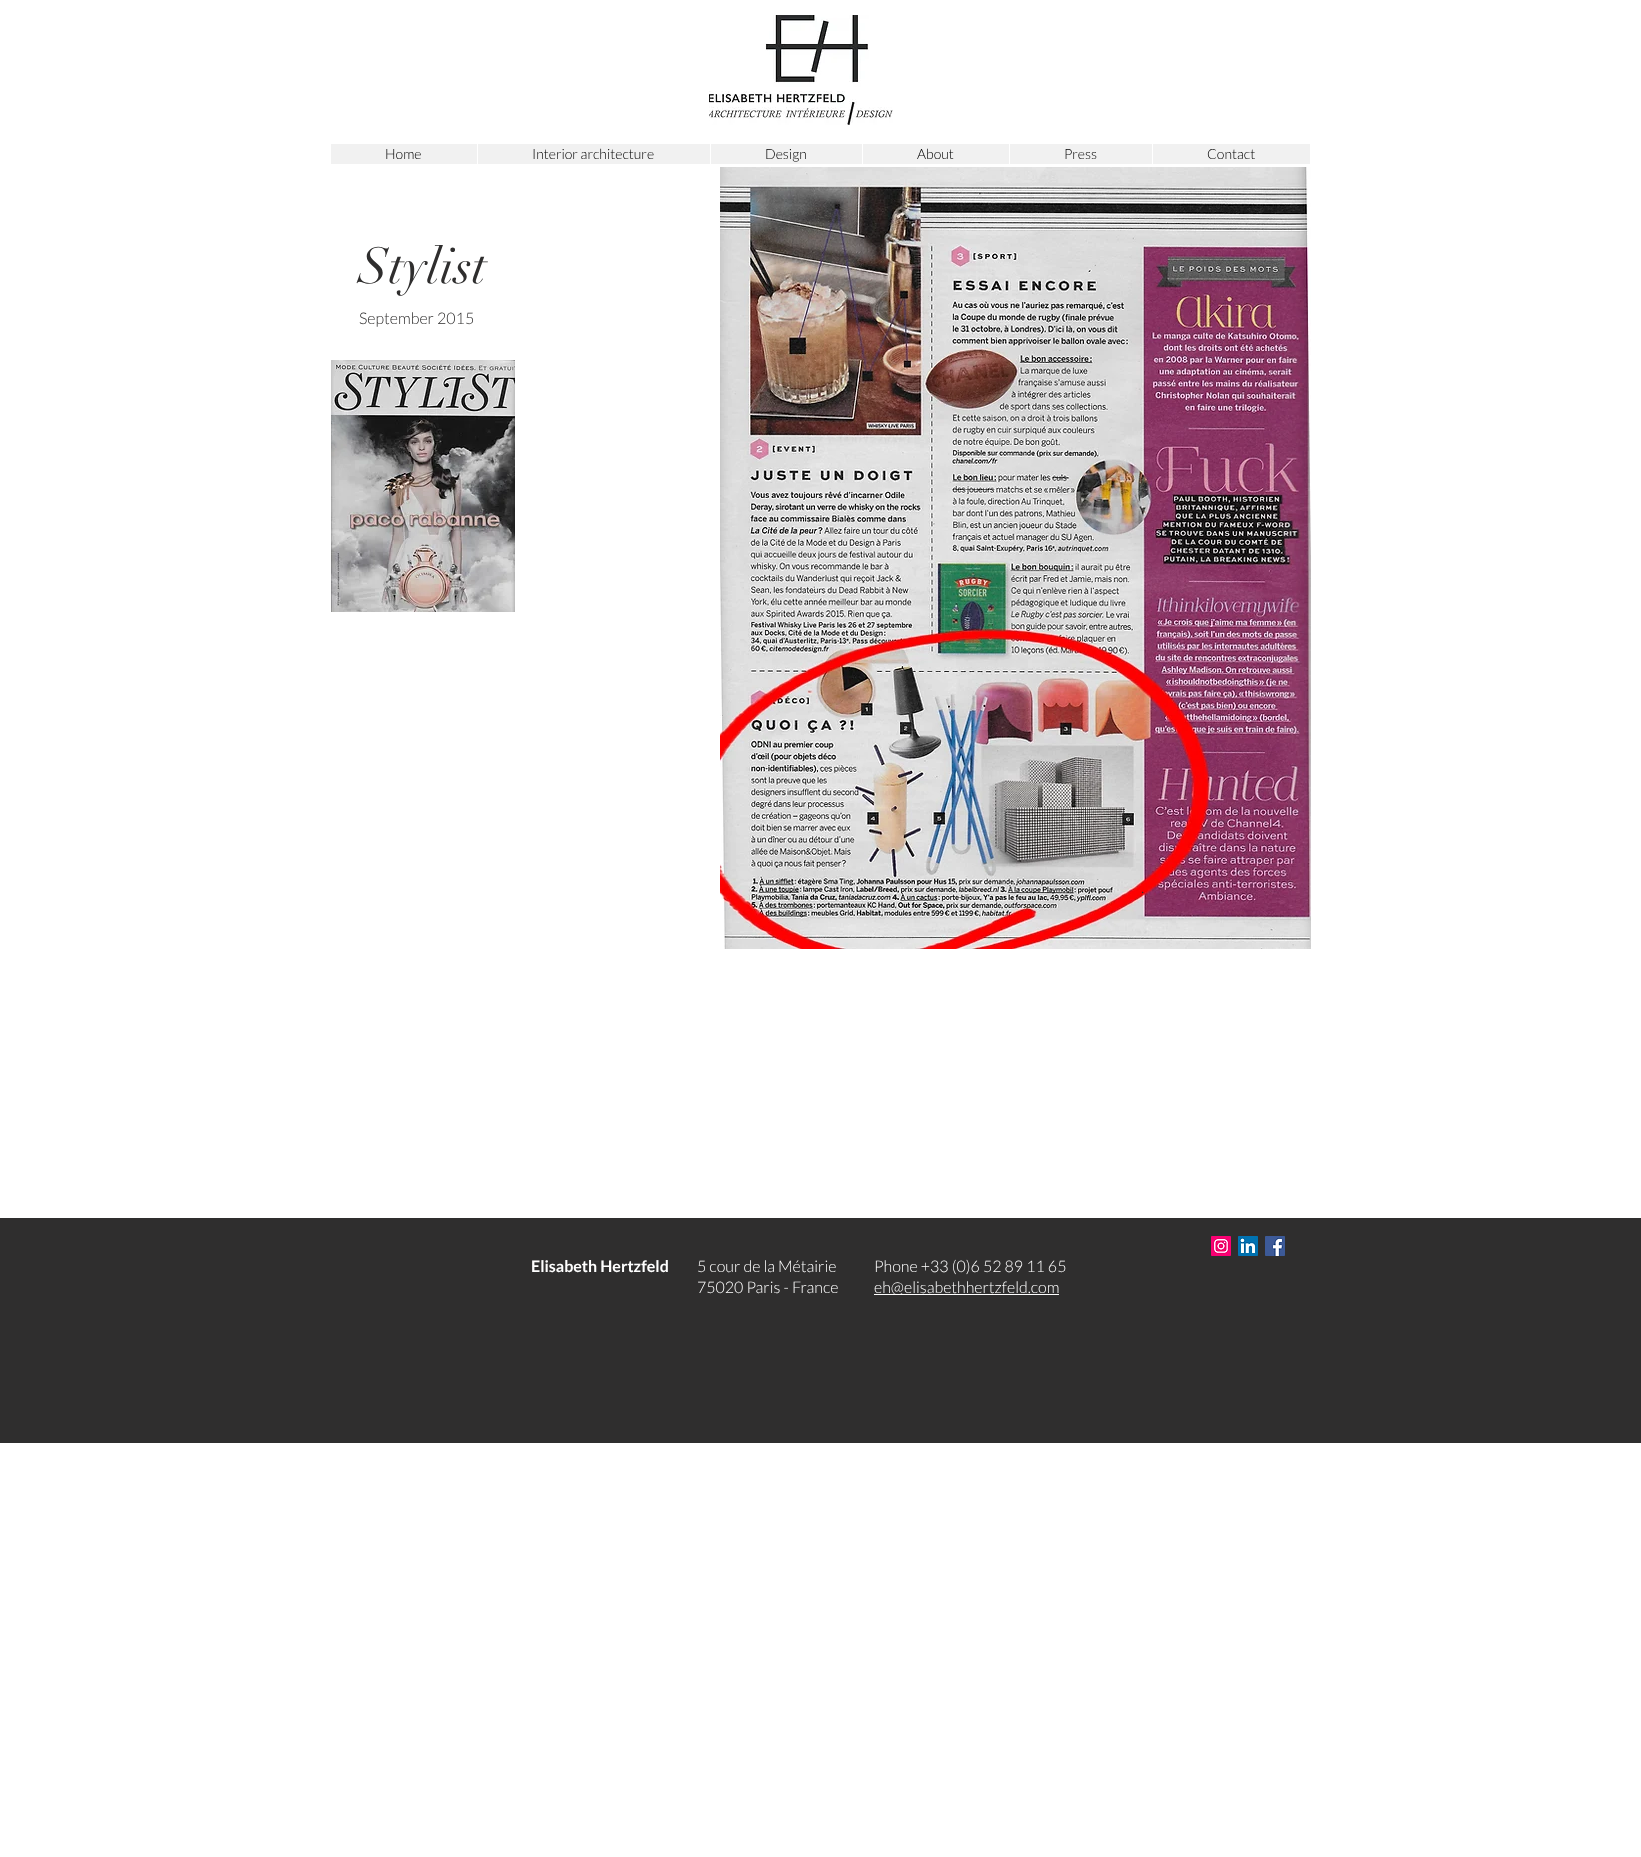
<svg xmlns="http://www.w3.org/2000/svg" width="1641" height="1857">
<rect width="100%" height="100%" fill="#fff"/>
<image x="709" y="15" width="184" height="110" href="media/1.png"/>
<rect x="331" y="144" width="979" height="20" fill="#f1f1f1"/>
<text x="385" y="159" style="font-family:Lato;font-size:14px;font-weight:300;fill:#000">Home</text>
<rect x="477" y="144" width="1" height="20" fill="#fff"/>
<text x="532" y="159" style="font-family:Lato;font-size:14px;font-weight:300;fill:#000">Interior architecture</text>
<rect x="710" y="144" width="1" height="20" fill="#fff"/>
<text x="765" y="159" style="font-family:Lato;font-size:14px;font-weight:300;fill:#000">Design</text>
<rect x="862" y="144" width="1" height="20" fill="#fff"/>
<text x="917" y="159" style="font-family:Lato;font-size:14px;font-weight:300;fill:#000">About</text>
<rect x="1009" y="144" width="1" height="20" fill="#fff"/>
<text x="1064" y="159" style="font-family:Lato;font-size:14px;font-weight:300;fill:#000">Press</text>
<rect x="1152" y="144" width="1" height="20" fill="#fff"/>
<text x="1207" y="159" style="font-family:Lato;font-size:14px;font-weight:300;fill:#000">Contact</text>
<text x="359" y="283" style="font-family:didot;font-size:50px;fill:#2f2e2e">Stylist</text>
<image x="720" y="167" width="591" height="782" href="media/2.png"/>
<text x="359" y="324" style="font-family:Lato;font-size:16px;font-weight:300;fill:#2f2e2e">September 2015</text>
<image x="331" y="360" width="184" height="252" href="media/3.png"/>
<text x="1141" y="893" style="font-family:Lato;font-size:16px;font-weight:300;letter-spacing:1px;fill:#2f2e2e">.</text>
<rect y="1218" width="1641" height="225" fill="#2f2e2e"/>
<image x="1211" y="1236" width="20" height="20" href="media/4.png"/>
<image x="1238" y="1236" width="20" height="20" href="media/5.png"/>
<image x="1265" y="1236" width="20" height="20" href="media/6.png"/>
<text x="531" y="1272" style="font-family:Lato;font-size:16px;font-weight:bold;fill:#fff">Elisabeth Hertzfeld</text>
<text x="697" y="1272" style="font-family:Lato;font-size:16px;font-weight:300;fill:#fff">5 cour de la Métairie</text>
<text x="697" y="1293" style="font-family:Lato;font-size:16px;font-weight:300;fill:#fff">75020 Paris - France</text>
<text x="874" y="1272" style="font-family:Lato;font-size:16px;font-weight:300;fill:#fff">Phone +33 (0)6 52 89 11 65</text>
<rect x="874" y="1294" width="185" height="1" fill="#fff"/>
<text x="874" y="1293" style="font-family:Lato;font-size:16px;font-weight:300;fill:#fff">eh@elisabethhertzfeld.com</text>
</svg>
